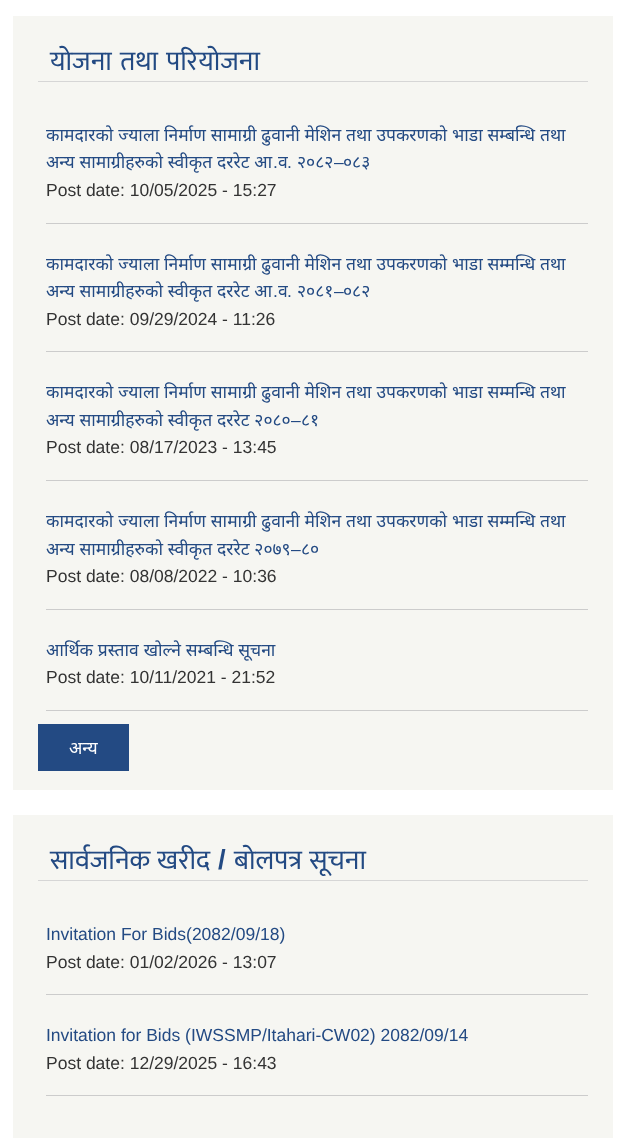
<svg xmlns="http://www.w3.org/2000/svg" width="625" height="1138">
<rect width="100%" height="100%" fill="#fff"/>
<rect x="13" y="16" width="600" height="774" fill="#f6f6f2"/>
<rect x="38" y="81" width="550" height="1" fill="#d6d6d6"/>
<text x="50" y="70" word-spacing="2" style="font-family:Mukta;font-size:27.5px;fill:#234a83">योजना तथा परियोजना</text>
<rect x="46" y="223" width="542" height="1" fill="#ccc"/>
<text x="46" y="141" word-spacing="0.25" style="font-family:Noto Sans;font-size:17.5px;fill:#234a83">कामदारको ज्याला निर्माण सामाग्री ढुवानी मेशिन तथा उपकरणको भाडा सम्बन्धि तथा</text>
<text x="46" y="168" word-spacing="0.25" style="font-family:Noto Sans;font-size:17.5px;fill:#234a83">अन्य सामाग्रीहरुको स्वीकृत दररेट आ</text>
<text x="278" y="168" style="font-family:Noto Sans;font-size:17.5px;fill:#234a83">व</text>
<text x="297" y="168" style="font-family:Noto Sans;font-size:17.5px;fill:#234a83">२०८२</text>
<text x="334" y="168" style="font-family:Liberation Sans;font-size:17.5px;fill:#234a83">–</text>
<text x="343" y="168" style="font-family:Noto Sans;font-size:17.5px;fill:#234a83">०८३</text>
<text x="273" y="168" style="font-family:Liberation Sans;font-size:17.5px;fill:#234a83">.</text>
<text x="287" y="168" style="font-family:Liberation Sans;font-size:17.5px;fill:#234a83">.</text>
<text x="46" y="196" style="font-family:Liberation Sans;font-size:17.5px;fill:#333">Post date: 10/05/2025 - 15:27</text>
<rect x="46" y="351" width="542" height="1" fill="#ccc"/>
<text x="46" y="270" word-spacing="0.25" style="font-family:Noto Sans;font-size:17.5px;fill:#234a83">कामदारको ज्याला निर्माण सामाग्री ढुवानी मेशिन तथा उपकरणको भाडा सम्मन्धि तथा</text>
<text x="46" y="297" word-spacing="0.25" style="font-family:Noto Sans;font-size:17.5px;fill:#234a83">अन्य सामाग्रीहरुको स्वीकृत दररेट आ</text>
<text x="278" y="297" style="font-family:Noto Sans;font-size:17.5px;fill:#234a83">व</text>
<text x="297" y="297" style="font-family:Noto Sans;font-size:17.5px;fill:#234a83">२०८१</text>
<text x="334" y="297" style="font-family:Liberation Sans;font-size:17.5px;fill:#234a83">–</text>
<text x="343" y="297" style="font-family:Noto Sans;font-size:17.5px;fill:#234a83">०८२</text>
<text x="273" y="297" style="font-family:Liberation Sans;font-size:17.5px;fill:#234a83">.</text>
<text x="287" y="297" style="font-family:Liberation Sans;font-size:17.5px;fill:#234a83">.</text>
<text x="46" y="325" style="font-family:Liberation Sans;font-size:17.5px;fill:#333">Post date: 09/29/2024 - 11:26</text>
<rect x="46" y="480" width="542" height="1" fill="#ccc"/>
<text x="46" y="398" word-spacing="0.25" style="font-family:Noto Sans;font-size:17.5px;fill:#234a83">कामदारको ज्याला निर्माण सामाग्री ढुवानी मेशिन तथा उपकरणको भाडा सम्मन्धि तथा</text>
<text x="46" y="426" word-spacing="0.25" style="font-family:Noto Sans;font-size:17.5px;fill:#234a83">अन्य सामाग्रीहरुको स्वीकृत दररेट २०८०</text>
<text x="291" y="426" style="font-family:Liberation Sans;font-size:17.5px;fill:#234a83">–</text>
<text x="301" y="426" style="font-family:Noto Sans;font-size:17.5px;fill:#234a83">८१</text>
<text x="46" y="453" style="font-family:Liberation Sans;font-size:17.5px;fill:#333">Post date: 08/17/2023 - 13:45</text>
<rect x="46" y="609" width="542" height="1" fill="#ccc"/>
<text x="46" y="527" word-spacing="0.25" style="font-family:Noto Sans;font-size:17.5px;fill:#234a83">कामदारको ज्याला निर्माण सामाग्री ढुवानी मेशिन तथा उपकरणको भाडा सम्मन्धि तथा</text>
<text x="46" y="555" word-spacing="0.25" style="font-family:Noto Sans;font-size:17.5px;fill:#234a83">अन्य सामाग्रीहरुको स्वीकृत दररेट २०७९</text>
<text x="291" y="555" style="font-family:Liberation Sans;font-size:17.5px;fill:#234a83">–</text>
<text x="301" y="555" style="font-family:Noto Sans;font-size:17.5px;fill:#234a83">८०</text>
<text x="46" y="582" style="font-family:Liberation Sans;font-size:17.5px;fill:#333">Post date: 08/08/2022 - 10:36</text>
<rect x="46" y="710" width="542" height="1" fill="#ccc"/>
<text x="46" y="656" word-spacing="0.25" style="font-family:Noto Sans;font-size:17.5px;fill:#234a83">आर्थिक प्रस्ताव खोल्ने सम्बन्धि सूचना</text>
<text x="46" y="683" style="font-family:Liberation Sans;font-size:17.5px;fill:#333">Post date: 10/11/2021 - 21:52</text>
<rect x="38" y="724" width="91" height="47" fill="#234a83"/>
<text x="69" y="754" style="font-family:Noto Sans;font-size:17.5px;fill:#fff">अन्य</text>
<rect x="13" y="815" width="600" height="323" fill="#f6f6f2"/>
<rect x="38" y="880" width="550" height="1" fill="#d6d6d6"/>
<text x="50" y="869" word-spacing="1" style="font-family:Mukta;font-size:27.5px;fill:#234a83">सार्वजनिक खरीद</text>
<text x="218" y="869" style="font-family:Liberation Sans;font-size:27.5px;font-weight:bold;fill:#234a83">/</text>
<text x="234" y="869" word-spacing="1" style="font-family:Mukta;font-size:27.5px;fill:#234a83">बोलपत्र सूचना</text>
<rect x="46" y="994" width="542" height="1" fill="#ccc"/>
<text x="46" y="940" style="font-family:Liberation Sans;font-size:17.5px;fill:#234a83">Invitation For Bids(2082/09/18)</text>
<text x="46" y="968" style="font-family:Liberation Sans;font-size:17.5px;fill:#333">Post date: 01/02/2026 - 13:07</text>
<rect x="46" y="1095" width="542" height="1" fill="#ccc"/>
<text x="46" y="1041" style="font-family:Liberation Sans;font-size:17.5px;fill:#234a83">Invitation for Bids (IWSSMP/Itahari-CW02) 2082/09/14</text>
<text x="46" y="1069" style="font-family:Liberation Sans;font-size:17.5px;fill:#333">Post date: 12/29/2025 - 16:43</text>
</svg>
